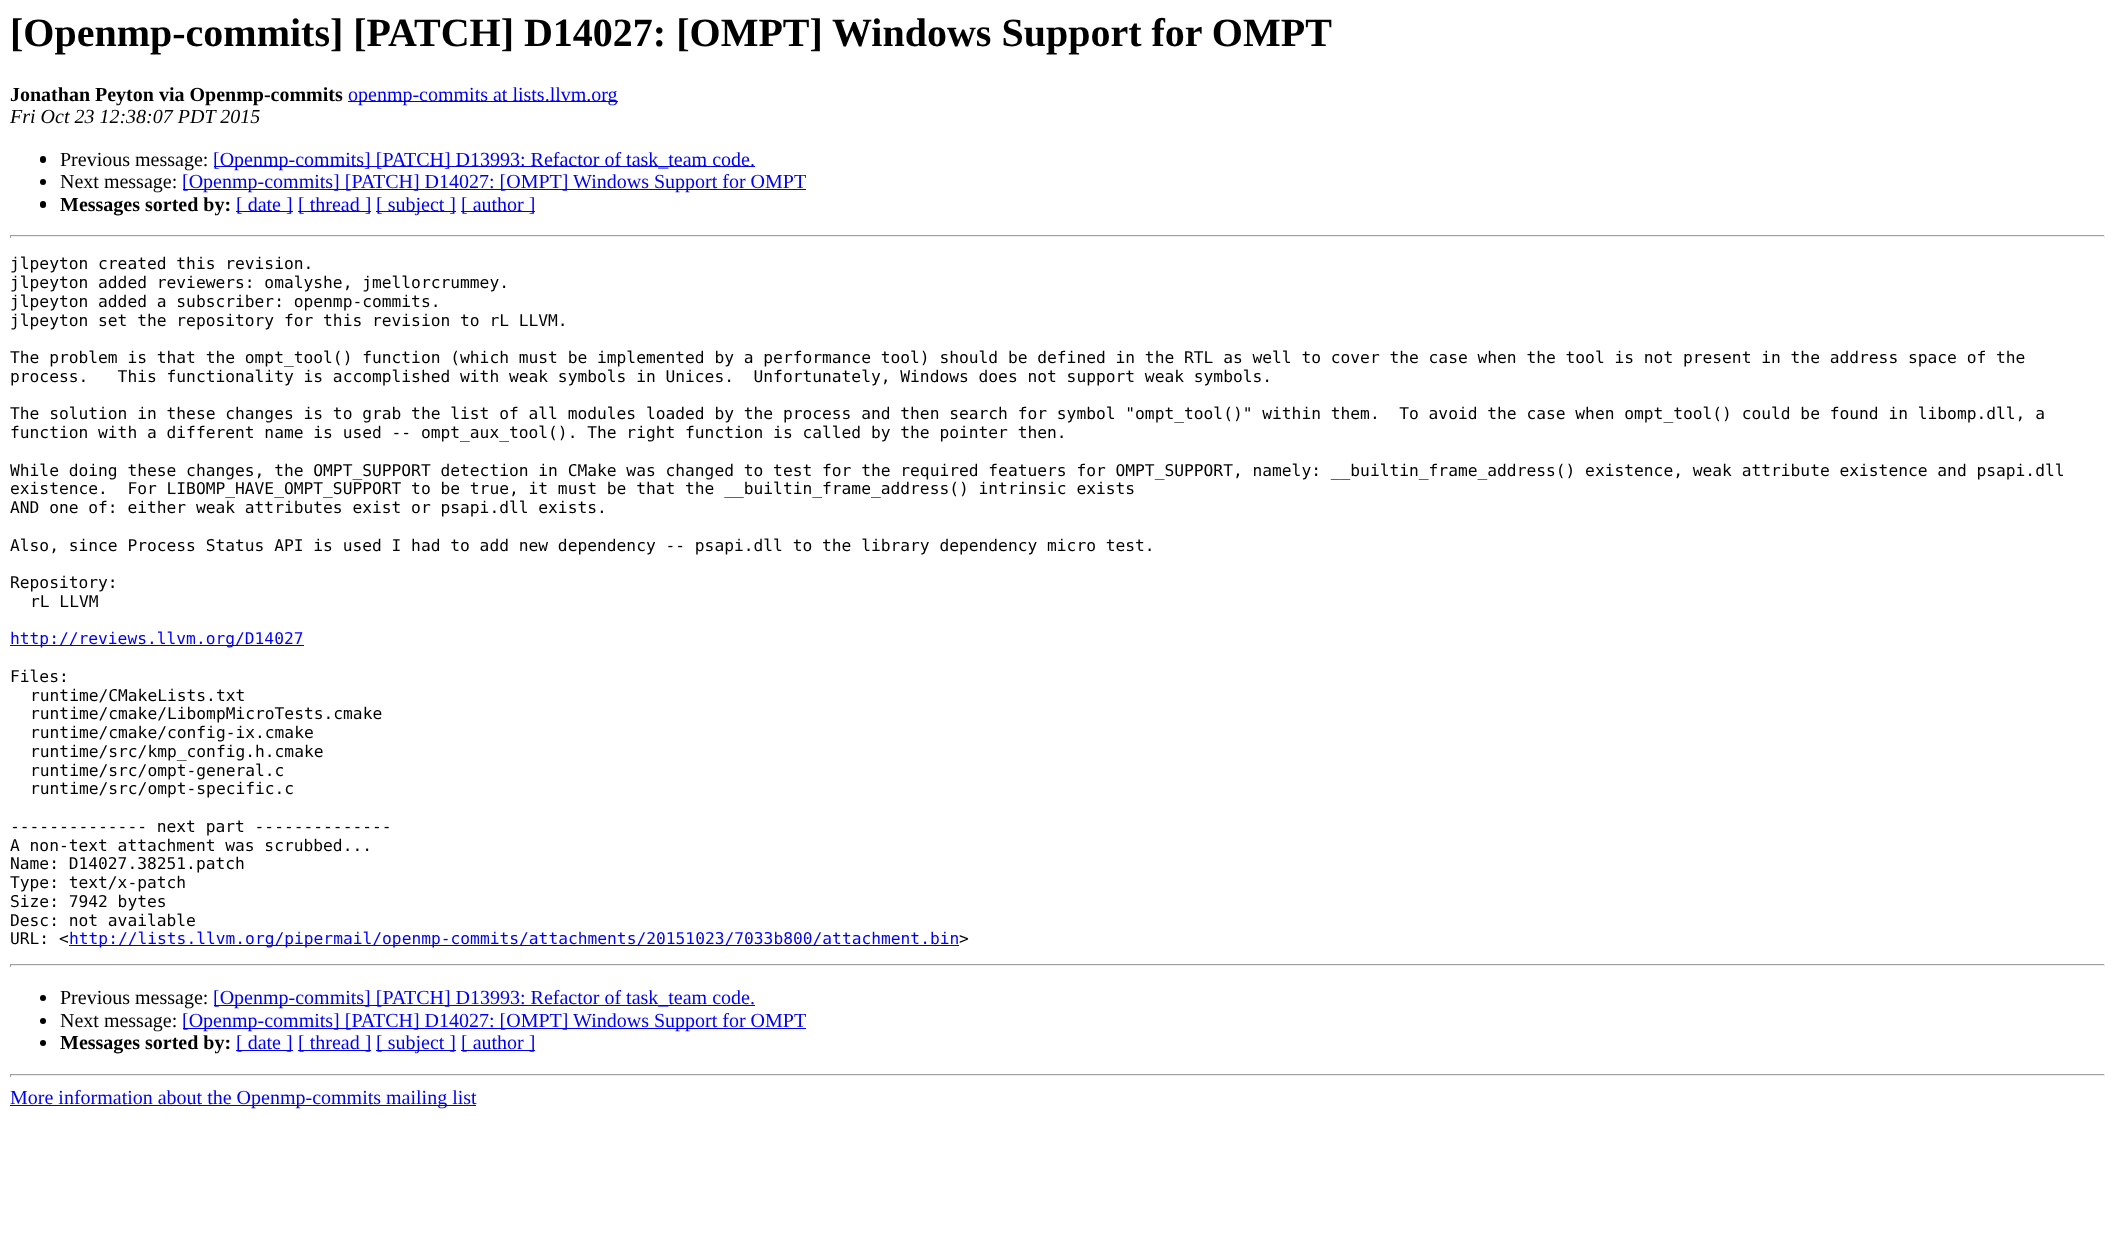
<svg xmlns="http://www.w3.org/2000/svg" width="2115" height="1239">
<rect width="100%" height="100%" fill="#fff"/>
<text x="10" y="46" style="font-family:Liberation Serif;font-size:40px;font-weight:bold;fill:#000">[Openmp-commits] [PATCH] D14027: [OMPT] Windows Support for OMPT</text>
<text x="10" y="101" style="font-family:Liberation Serif;font-size:20px;font-weight:bold;fill:#000">Jonathan Peyton via Openmp-commits</text>
<rect x="348" y="101" width="270" height="1" fill="#00e"/>
<text x="348" y="101" style="font-family:Liberation Serif;font-size:20px;fill:#00e">openmp-commits at lists.llvm.org</text>
<text x="10" y="123" style="font-family:Liberation Serif;font-size:20px;font-style:italic;fill:#000">Fri Oct 23 12:38:07 PDT 2015</text>
<rect x="40" y="156" width="6" height="7" rx="3" fill="#000"/>
<text x="60" y="166" style="font-family:Liberation Serif;font-size:20px;fill:#000">Previous message:</text>
<rect x="214" y="166" width="541" height="1" fill="#00e"/>
<text x="213" y="166" style="font-family:Liberation Serif;font-size:20px;fill:#00e">[Openmp-commits] [PATCH] D13993: Refactor of task_team code.</text>
<circle cx="43" cy="182" r="3" fill="#000"/>
<text x="60" y="188" style="font-family:Liberation Serif;font-size:20px;fill:#000">Next message:</text>
<rect x="183" y="189" width="623" height="1" fill="#00e"/>
<text x="182" y="188" style="font-family:Liberation Serif;font-size:20px;fill:#00e">[Openmp-commits] [PATCH] D14027: [OMPT] Windows Support for OMPT</text>
<rect x="40" y="201" width="6" height="7" rx="3" fill="#000"/>
<text x="60" y="211" style="font-family:Liberation Serif;font-size:20px;font-weight:bold;fill:#000">Messages sorted by:</text>
<rect x="236" y="211" width="57" height="1" fill="#00e"/>
<text x="236" y="211" style="font-family:Liberation Serif;font-size:20px;fill:#00e">[ date ]</text>
<rect x="298" y="211" width="73" height="1" fill="#00e"/>
<text x="298" y="211" style="font-family:Liberation Serif;font-size:20px;fill:#00e">[ thread ]</text>
<rect x="376" y="211" width="80" height="1" fill="#00e"/>
<text x="376" y="211" style="font-family:Liberation Serif;font-size:20px;fill:#00e">[ subject ]</text>
<rect x="461" y="211" width="74" height="1" fill="#00e"/>
<text x="461" y="211" style="font-family:Liberation Serif;font-size:20px;fill:#00e">[ author ]</text>
<rect x="10" y="235" width="2095" height="1" fill="#9f9f9f"/>
<rect x="2104" y="235" width="1" height="3" fill="#eee"/>
<rect x="10" y="236" width="2095" height="1" fill="#eee"/>
<rect x="10" y="235" width="1" height="3" fill="#9f9f9f"/>
<text x="10" y="269" style="font-family:DejaVu Sans Mono;font-size:16.25px;fill:#000">jlpeyton created this revision.</text>
<text x="10" y="288" style="font-family:DejaVu Sans Mono;font-size:16.25px;fill:#000">jlpeyton added reviewers: omalyshe, jmellorcrummey.</text>
<text x="10" y="307" style="font-family:DejaVu Sans Mono;font-size:16.25px;fill:#000">jlpeyton added a subscriber: openmp-commits.</text>
<text x="10" y="326" style="font-family:DejaVu Sans Mono;font-size:16.25px;fill:#000">jlpeyton set the repository for this revision to rL LLVM.</text>
<text x="10" y="363" style="font-family:DejaVu Sans Mono;font-size:16.25px;fill:#000">The problem is that the ompt_tool() function (which must be implemented by a performance tool) should be defined in the RTL as well to cover the case when the tool is not present in the address space of the</text>
<text x="10" y="382" style="font-family:DejaVu Sans Mono;font-size:16.25px;fill:#000" xml:space="preserve">process.   This functionality is accomplished with weak symbols in Unices.  Unfortunately, Windows does not support weak symbols.</text>
<text x="10" y="419" style="font-family:DejaVu Sans Mono;font-size:16.25px;fill:#000" xml:space="preserve">The solution in these changes is to grab the list of all modules loaded by the process and then search for symbol "ompt_tool()" within them.  To avoid the case when ompt_tool() could be found in libomp.dll, a</text>
<text x="10" y="438" style="font-family:DejaVu Sans Mono;font-size:16.25px;fill:#000">function with a different name is used -- ompt_aux_tool(). The right function is called by the pointer then.</text>
<text x="10" y="476" style="font-family:DejaVu Sans Mono;font-size:16.25px;fill:#000">While doing these changes, the OMPT_SUPPORT detection in CMake was changed to test for the required featuers for OMPT_SUPPORT, namely: __builtin_frame_address() existence, weak attribute existence and psapi.dll</text>
<text x="10" y="494" style="font-family:DejaVu Sans Mono;font-size:16.25px;fill:#000" xml:space="preserve">existence.  For LIBOMP_HAVE_OMPT_SUPPORT to be true, it must be that the __builtin_frame_address() intrinsic exists</text>
<text x="10" y="513" style="font-family:DejaVu Sans Mono;font-size:16.25px;fill:#000">AND one of: either weak attributes exist or psapi.dll exists.</text>
<text x="10" y="551" style="font-family:DejaVu Sans Mono;font-size:16.25px;fill:#000">Also, since Process Status API is used I had to add new dependency -- psapi.dll to the library dependency micro test.</text>
<text x="10" y="588" style="font-family:DejaVu Sans Mono;font-size:16.25px;fill:#000">Repository:</text>
<text x="30" y="607" style="font-family:DejaVu Sans Mono;font-size:16.25px;fill:#000">rL LLVM</text>
<rect x="10" y="645" width="294" height="1" fill="#00e"/>
<text x="10" y="644" style="font-family:DejaVu Sans Mono;font-size:16.25px;fill:#00e">http://reviews.llvm.org/D14027</text>
<text x="10" y="682" style="font-family:DejaVu Sans Mono;font-size:16.25px;fill:#000">Files:</text>
<text x="30" y="701" style="font-family:DejaVu Sans Mono;font-size:16.25px;fill:#000">runtime/CMakeLists.txt</text>
<text x="30" y="719" style="font-family:DejaVu Sans Mono;font-size:16.25px;fill:#000">runtime/cmake/LibompMicroTests.cmake</text>
<text x="30" y="738" style="font-family:DejaVu Sans Mono;font-size:16.25px;fill:#000">runtime/cmake/config-ix.cmake</text>
<text x="30" y="757" style="font-family:DejaVu Sans Mono;font-size:16.25px;fill:#000">runtime/src/kmp_config.h.cmake</text>
<text x="30" y="776" style="font-family:DejaVu Sans Mono;font-size:16.25px;fill:#000">runtime/src/ompt-general.c</text>
<text x="30" y="794" style="font-family:DejaVu Sans Mono;font-size:16.25px;fill:#000">runtime/src/ompt-specific.c</text>
<text x="10" y="832" style="font-family:DejaVu Sans Mono;font-size:16.25px;fill:#000">-------------- next part --------------</text>
<text x="10" y="851" style="font-family:DejaVu Sans Mono;font-size:16.25px;fill:#000">A non-text attachment was scrubbed...</text>
<text x="10" y="869" style="font-family:DejaVu Sans Mono;font-size:16.25px;fill:#000">Name: D14027.38251.patch</text>
<text x="10" y="888" style="font-family:DejaVu Sans Mono;font-size:16.25px;fill:#000">Type: text/x-patch</text>
<text x="10" y="907" style="font-family:DejaVu Sans Mono;font-size:16.25px;fill:#000">Size: 7942 bytes</text>
<text x="10" y="926" style="font-family:DejaVu Sans Mono;font-size:16.25px;fill:#000">Desc: not available</text>
<text x="10" y="944" style="font-family:DejaVu Sans Mono;font-size:16.25px;fill:#000">URL: &lt;</text>
<rect x="69" y="945" width="890" height="1" fill="#00e"/>
<text x="69" y="944" style="font-family:DejaVu Sans Mono;font-size:16.25px;fill:#00e">http://lists.llvm.org/pipermail/openmp-commits/attachments/20151023/7033b800/attachment.bin</text>
<text x="959" y="944" style="font-family:DejaVu Sans Mono;font-size:16.25px;fill:#000">&gt;</text>
<rect x="10" y="964" width="2095" height="1" fill="#9f9f9f"/>
<rect x="2104" y="964" width="1" height="3" fill="#eee"/>
<rect x="10" y="965" width="2095" height="1" fill="#eee"/>
<rect x="10" y="964" width="1" height="3" fill="#9f9f9f"/>
<circle cx="43" cy="998" r="3" fill="#000"/>
<text x="60" y="1004" style="font-family:Liberation Serif;font-size:20px;fill:#000">Previous message:</text>
<rect x="214" y="1005" width="541" height="1" fill="#00e"/>
<text x="213" y="1004" style="font-family:Liberation Serif;font-size:20px;fill:#00e">[Openmp-commits] [PATCH] D13993: Refactor of task_team code.</text>
<circle cx="43" cy="1021" r="3" fill="#000"/>
<text x="60" y="1027" style="font-family:Liberation Serif;font-size:20px;fill:#000">Next message:</text>
<rect x="183" y="1028" width="623" height="1" fill="#00e"/>
<text x="182" y="1027" style="font-family:Liberation Serif;font-size:20px;fill:#00e">[Openmp-commits] [PATCH] D14027: [OMPT] Windows Support for OMPT</text>
<circle cx="43" cy="1043" r="3" fill="#000"/>
<text x="60" y="1049" style="font-family:Liberation Serif;font-size:20px;font-weight:bold;fill:#000">Messages sorted by:</text>
<rect x="236" y="1050" width="57" height="1" fill="#00e"/>
<text x="236" y="1049" style="font-family:Liberation Serif;font-size:20px;fill:#00e">[ date ]</text>
<rect x="298" y="1050" width="73" height="1" fill="#00e"/>
<text x="298" y="1049" style="font-family:Liberation Serif;font-size:20px;fill:#00e">[ thread ]</text>
<rect x="376" y="1050" width="80" height="1" fill="#00e"/>
<text x="376" y="1049" style="font-family:Liberation Serif;font-size:20px;fill:#00e">[ subject ]</text>
<rect x="461" y="1050" width="74" height="1" fill="#00e"/>
<text x="461" y="1049" style="font-family:Liberation Serif;font-size:20px;fill:#00e">[ author ]</text>
<rect x="10" y="1074" width="2095" height="1" fill="#9f9f9f"/>
<rect x="2104" y="1074" width="1" height="3" fill="#eee"/>
<rect x="10" y="1075" width="2095" height="1" fill="#eee"/>
<rect x="10" y="1074" width="1" height="3" fill="#9f9f9f"/>
<rect x="10" y="1105" width="466" height="1" fill="#00e"/>
<text x="10" y="1104" style="font-family:Liberation Serif;font-size:20px;fill:#00e">More information about the Openmp-commits mailing list</text>
</svg>
